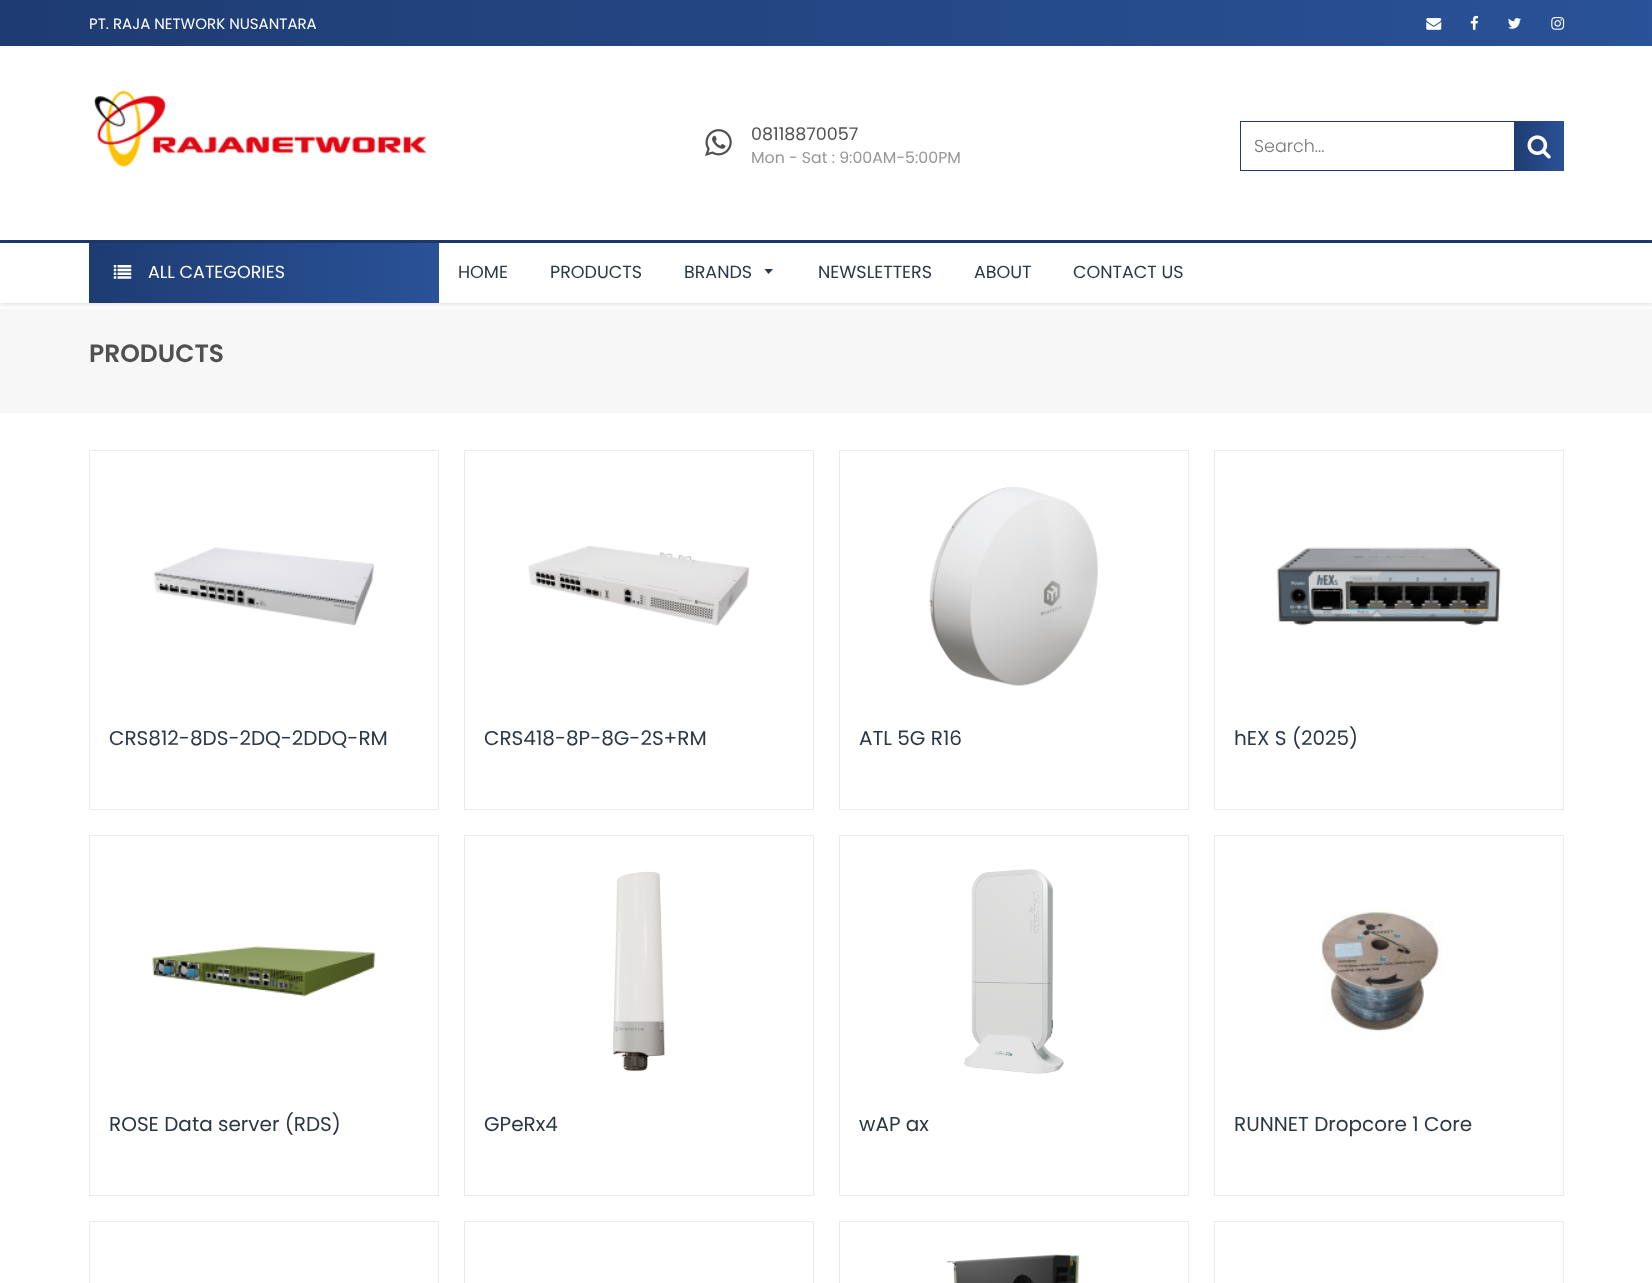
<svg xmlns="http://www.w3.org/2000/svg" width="1652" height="1283">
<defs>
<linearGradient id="g1" gradientUnits="userSpaceOnUse" x1="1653" y1="23" x2="0" y2="23"><stop offset="0" stop-color="#2a5298"/><stop offset="1" stop-color="#1e3c72"/></linearGradient>
<clipPath id="clip1"><path d="M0 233h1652v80h-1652zm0 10h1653v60h-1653z" clip-rule="evenodd"/></clipPath>
<linearGradient id="g2" gradientUnits="userSpaceOnUse" x1="1564" y1="146" x2="1514" y2="146"><stop offset="0" stop-color="#2a5298"/><stop offset="1" stop-color="#1e3c72"/></linearGradient>
<linearGradient id="g3" gradientUnits="userSpaceOnUse" x1="439" y1="273" x2="89" y2="273"><stop offset="0" stop-color="#2a5298"/><stop offset="1" stop-color="#1e3c72"/></linearGradient>
</defs>
<rect width="100%" height="100%" fill="#fff"/>
<rect width="1652" height="46" fill="url(#g1)"/>
<text x="89" y="29" style="font-family:Poppins;font-size:15px;fill:#fff">PT. RAJA NETWORK NUSANTARA</text>
<image x="1426" y="18" width="16" height="12" href="media/1.png"/>
<image x="1470" y="15" width="9" height="15" href="media/2.png"/>
<image x="1508" y="18" width="13" height="11" href="media/3.png"/>
<image x="1551" y="17" width="14" height="13" href="media/4.png"/>
<rect y="240" width="1652" height="3" fill="#1e3c72"/>
<rect y="309" width="1652" height="104" fill="#f7f7f7"/>
<g clip-path="url(#clip1)">
<rect y="243" width="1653" height="60" fill="#00000033" filter="blur(3px)"/>
</g>
<rect y="238" width="1652" height="2" fill="#fff"/>
<image x="93" y="90" width="334" height="78" href="media/5.png"/>
<image x="705" y="129" width="27" height="27" href="media/6.png"/>
<text x="751" y="140" style="font-family:Poppins;font-size:17.5px;fill:#505050">08118870057</text>
<text x="751" y="163" style="font-family:Poppins;font-size:15.75px;fill:#969696">Mon - Sat : 9:00AM-5:00PM</text>
<rect x="1240.5" y="121.5" width="323" height="49" fill="none" stroke="#1e3c72"/>
<text x="1254" y="152" style="font-family:Poppins;font-size:17.5px;font-weight:300;fill:#777">Search...</text>
<rect x="1514" y="121" width="50" height="50" fill="url(#g2)"/>
<image x="1527" y="135" width="24" height="24" href="media/7.png"/>
<rect x="89" y="243" width="350" height="60" fill="url(#g3)"/>
<image x="113" y="265" width="19" height="14" href="media/8.png"/>
<text x="148" y="278" style="font-family:Poppins;font-size:17.5px;fill:#fff">ALL CATEGORIES</text>
<text x="458" y="278" style="font-family:Poppins;font-size:17.5px;fill:#2b3743">HOME</text>
<text x="550" y="278" style="font-family:Poppins;font-size:17.5px;fill:#2b3743">PRODUCTS</text>
<text x="684" y="278" style="font-family:Poppins;font-size:17.5px;fill:#2b3743">BRANDS</text>
<path d="M764.5 269l4 5l4.5-5z" fill="#2b3743"/>
<text x="818" y="278" style="font-family:Poppins;font-size:17.5px;fill:#2b3743">NEWSLETTERS</text>
<text x="974" y="278" style="font-family:Poppins;font-size:17.5px;fill:#2b3743">ABOUT</text>
<text x="1073" y="278" style="font-family:Poppins;font-size:17.5px;fill:#2b3743">CONTACT US</text>
<text x="89" y="362" style="font-family:Poppins;font-size:25px;font-weight:600;fill:#505050">PRODUCTS</text>
<rect x="89.5" y="450.5" width="349" height="359" fill="none" stroke="#ebebeb"/>
<image x="153" y="547" width="221" height="79" href="media/9.png"/>
<text x="109" y="745" style="font-family:Poppins;font-size:20px;fill:#2b3743">CRS812-8DS-2DQ-2DDQ-RM</text>
<rect x="464.5" y="450.5" width="349" height="359" fill="none" stroke="#ebebeb"/>
<image x="528" y="545" width="222" height="81" href="media/10.png"/>
<text x="484" y="745" style="font-family:Poppins;font-size:20px;fill:#2b3743">CRS418-8P-8G-2S+RM</text>
<rect x="839.5" y="450.5" width="349" height="359" fill="none" stroke="#ebebeb"/>
<image x="929" y="487" width="169" height="199" href="media/11.png"/>
<text x="859" y="745" style="font-family:Poppins;font-size:20px;fill:#2b3743">ATL 5G R16</text>
<rect x="1214.5" y="450.5" width="349" height="359" fill="none" stroke="#ebebeb"/>
<image x="1277" y="547" width="224" height="79" href="media/12.png"/>
<text x="1234" y="745" style="font-family:Poppins;font-size:20px;fill:#2b3743">hEX S (2025)</text>
<rect x="89.5" y="835.5" width="349" height="360" fill="none" stroke="#ebebeb"/>
<image x="152" y="946" width="224" height="51" href="media/13.png"/>
<text x="109" y="1131" style="font-family:Poppins;font-size:20px;fill:#2b3743">ROSE Data server (RDS)</text>
<rect x="464.5" y="835.5" width="349" height="360" fill="none" stroke="#ebebeb"/>
<image x="612" y="871" width="53" height="201" href="media/14.png"/>
<text x="484" y="1131" style="font-family:Poppins;font-size:20px;fill:#2b3743">GPeRx4</text>
<rect x="839.5" y="835.5" width="349" height="360" fill="none" stroke="#ebebeb"/>
<image x="964" y="869" width="100" height="205" href="media/15.png"/>
<text x="859" y="1131" style="font-family:Poppins;font-size:20px;fill:#2b3743">wAP ax</text>
<rect x="1214.5" y="835.5" width="349" height="360" fill="none" stroke="#ebebeb"/>
<image x="1318" y="908" width="125" height="133" href="media/16.png"/>
<text x="1234" y="1131" style="font-family:Poppins;font-size:20px;fill:#2b3743">RUNNET Dropcore 1 Core</text>
<rect x="89.5" y="1221.5" width="349" height="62" fill="none" stroke="#ebebeb"/>
<rect x="464.5" y="1221.5" width="349" height="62" fill="none" stroke="#ebebeb"/>
<rect x="839.5" y="1221.5" width="349" height="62" fill="none" stroke="#ebebeb"/>
<image x="946" y="1254" width="134" height="29" href="media/17.png"/>
<rect x="1214.5" y="1221.5" width="349" height="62" fill="none" stroke="#ebebeb"/>
</svg>
